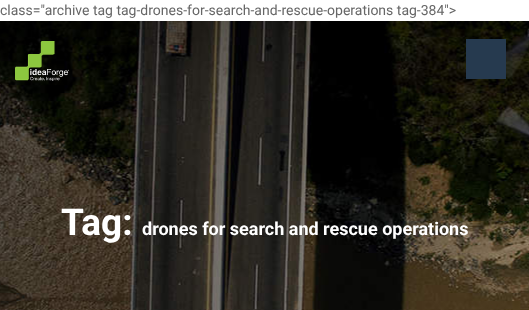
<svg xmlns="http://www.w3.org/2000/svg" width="529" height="310">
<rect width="100%" height="100%" fill="#fff"/>
<text x="0" y="15" style="font-family:Roboto;font-size:14px;fill:#666">class="archive tag tag-drones-for-search-and-rescue-operations tag-384"&gt;</text>
<image x="0" y="21" width="529" height="289" href="media/2.png"/>
<image x="15" y="41" width="54" height="40" href="media/1.png"/>
<rect x="466" y="39" width="40" height="40" fill="#263a4f"/>
<text x="61" y="235" style="font-family:Roboto;font-size:37px;font-weight:bold;fill:#fff">Tag:</text>
<text x="142" y="235" style="font-family:Roboto;font-size:18px;font-weight:bold;fill:#fff">drones for search and rescue operations</text>
</svg>
